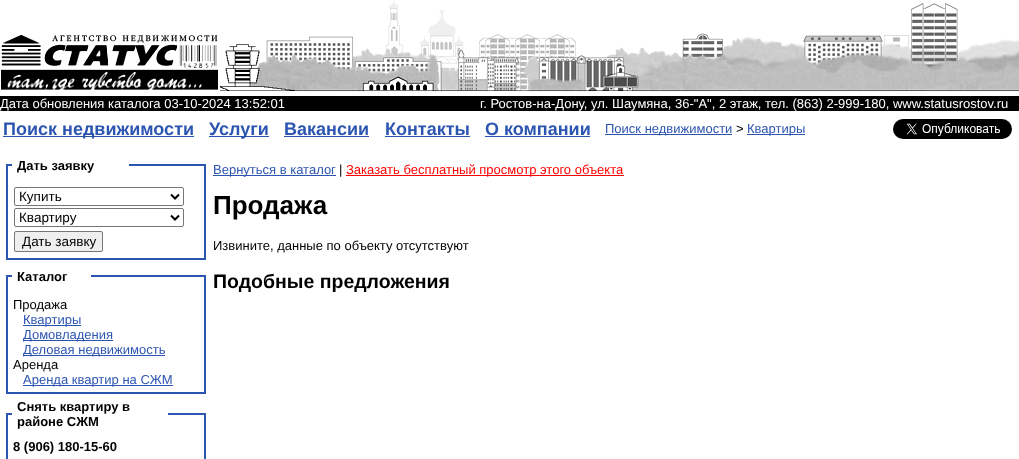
<svg xmlns="http://www.w3.org/2000/svg" width="1019" height="459">
<rect width="100%" height="100%" fill="#fff"/>
<image x="1" y="34" width="217" height="56" href="media/1.png"/>
<image x="220" y="0" width="799" height="91" href="media/2.png"/>
<rect y="96" width="1019" height="15" fill="#000"/>
<text x="0" y="108" style="font-family:Liberation Sans;font-size:13px;fill:#fff">Дата обновления каталога 03-10-2024 13:52:01</text>
<text x="480" y="108" style="font-family:Liberation Sans;font-size:13px;fill:#fff">г. Ростов-на-Дону, ул. Шаумяна, 36-"A", 2 этаж, тел. (863) 2-999-180, www.statusrostov.ru</text>
<rect x="3" y="136" width="191" height="1" fill="#2c55b1"/>
<text x="3" y="135" style="font-family:Liberation Sans;font-size:18px;font-weight:bold;fill:#2c55b1">Поиск недвижимости</text>
<rect x="209" y="136" width="60" height="1" fill="#2c55b1"/>
<text x="209" y="135" style="font-family:Liberation Sans;font-size:18px;font-weight:bold;fill:#2c55b1">Услуги</text>
<text x="284" y="135" style="font-family:Liberation Sans;font-size:18px;font-weight:bold;fill:#2c55b1">Вакансии</text>
<rect x="284" y="136" width="85" height="1" fill="#2c55b1"/>
<text x="385" y="135" style="font-family:Liberation Sans;font-size:18px;font-weight:bold;fill:#2c55b1">Контакты</text>
<rect x="385" y="136" width="85" height="1" fill="#2c55b1"/>
<text x="485" y="135" style="font-family:Liberation Sans;font-size:18px;font-weight:bold;fill:#2c55b1">О компании</text>
<rect x="485" y="136" width="105" height="1" fill="#2c55b1"/>
<rect x="605" y="134" width="127" height="1" fill="#2c55b1"/>
<text x="605" y="133" style="font-family:Liberation Sans;font-size:13px;fill:#2c55b1">Поиск недвижимости</text>
<text x="736" y="133" style="font-family:Liberation Sans;font-size:13px;fill:#000">&gt;</text>
<rect x="747" y="134" width="58" height="1" fill="#2c55b1"/>
<text x="747" y="133" style="font-family:Liberation Sans;font-size:13px;fill:#2c55b1">Квартиры</text>
<image x="893" y="119" width="119" height="20" href="media/3.png"/>
<text x="17" y="170" style="font-family:Liberation Sans;font-size:13px;font-weight:bold;fill:#000">Дать заявку</text>
<rect x="6" y="164" width="6" height="2" fill="#2c55b1"/>
<rect x="6" y="164" width="2" height="17" fill="#2c55b1"/>
<rect x="129" y="164" width="77" height="2" fill="#2c55b1"/>
<rect x="204" y="164" width="2" height="96" fill="#2c55b1"/>
<rect x="6" y="258" width="200" height="2" fill="#2c55b1"/>
<rect x="6" y="181" width="2" height="79" fill="#2c55b1"/>
<rect x="14.5" y="187.5" width="169" height="18" rx="1.5" fill="none" stroke="#767676"/>
<path d="M171 194.5l4 4l4-4" fill="none" stroke="#000" stroke-width="2"/>
<text x="19" y="201" style="font-family:Liberation Sans;font-size:13.5px;fill:#000">Купить</text>
<rect x="14.5" y="208.5" width="169" height="18" rx="1.5" fill="none" stroke="#767676"/>
<path d="M171 215.5l4 4l4-4" fill="none" stroke="#000" stroke-width="2"/>
<text x="19" y="222" style="font-family:Liberation Sans;font-size:13.5px;fill:#000">Квартиру</text>
<rect x="14.5" y="231.5" width="88" height="20" rx="1.5" fill="#efefef" stroke="#767676"/>
<text x="22" y="246" style="font-family:Liberation Sans;font-size:13.5px;fill:#000">Дать заявку</text>
<text x="17" y="281" style="font-family:Liberation Sans;font-size:13px;font-weight:bold;fill:#000">Каталог</text>
<rect x="6" y="275" width="6" height="2" fill="#2c55b1"/>
<rect x="6" y="275" width="2" height="17" fill="#2c55b1"/>
<rect x="91" y="275" width="115" height="2" fill="#2c55b1"/>
<rect x="204" y="275" width="2" height="119" fill="#2c55b1"/>
<rect x="6" y="392" width="200" height="2" fill="#2c55b1"/>
<rect x="6" y="292" width="2" height="102" fill="#2c55b1"/>
<text x="13" y="309" style="font-family:Liberation Sans;font-size:13px;fill:#000">Продажа</text>
<rect x="23" y="325" width="58" height="1" fill="#2c55b1"/>
<text x="23" y="324" style="font-family:Liberation Sans;font-size:13px;fill:#2c55b1">Квартиры</text>
<rect x="23" y="340" width="90" height="1" fill="#2c55b1"/>
<text x="23" y="339" style="font-family:Liberation Sans;font-size:13px;fill:#2c55b1">Домовладения</text>
<rect x="23" y="355" width="142" height="1" fill="#2c55b1"/>
<text x="23" y="354" style="font-family:Liberation Sans;font-size:13px;fill:#2c55b1">Деловая недвижимость</text>
<text x="13" y="369" style="font-family:Liberation Sans;font-size:13px;fill:#000">Аренда</text>
<rect x="23" y="385" width="150" height="1" fill="#2c55b1"/>
<text x="23" y="384" style="font-family:Liberation Sans;font-size:13px;fill:#2c55b1">Аренда квартир на СЖМ</text>
<text x="17" y="411" style="font-family:Liberation Sans;font-size:13px;font-weight:bold;fill:#000">Снять квартиру в</text>
<text x="17" y="426" style="font-family:Liberation Sans;font-size:13px;font-weight:bold;fill:#000">районе СЖМ</text>
<rect x="6" y="413" width="6" height="2" fill="#2c55b1"/>
<rect x="6" y="413" width="2" height="46" fill="#2c55b1"/>
<rect x="168" y="413" width="38" height="2" fill="#2c55b1"/>
<rect x="204" y="413" width="2" height="46" fill="#2c55b1"/>
<text x="13" y="451" style="font-family:Liberation Sans;font-size:13px;font-weight:bold;fill:#000">8 (906) 180-15-60</text>
<rect x="213" y="175" width="123" height="1" fill="#2c55b1"/>
<text x="213" y="174" style="font-family:Liberation Sans;font-size:13px;fill:#2c55b1">Вернуться в каталог</text>
<text x="339" y="174" style="font-family:Liberation Sans;font-size:13px;fill:#000">|</text>
<rect x="346" y="175" width="278" height="1" fill="#f00"/>
<text x="346" y="174" style="font-family:Liberation Sans;font-size:13px;fill:#f00">Заказать бесплатный просмотр этого объекта</text>
<text x="213" y="214" style="font-family:Liberation Sans;font-size:26px;font-weight:bold;fill:#000">Продажа</text>
<text x="213" y="250" style="font-family:Liberation Sans;font-size:13px;fill:#000">Извините, данные по объекту отсутствуют</text>
<text x="213" y="288" style="font-family:Liberation Sans;font-size:19.5px;font-weight:bold;fill:#000">Подобные предложения</text>
</svg>
